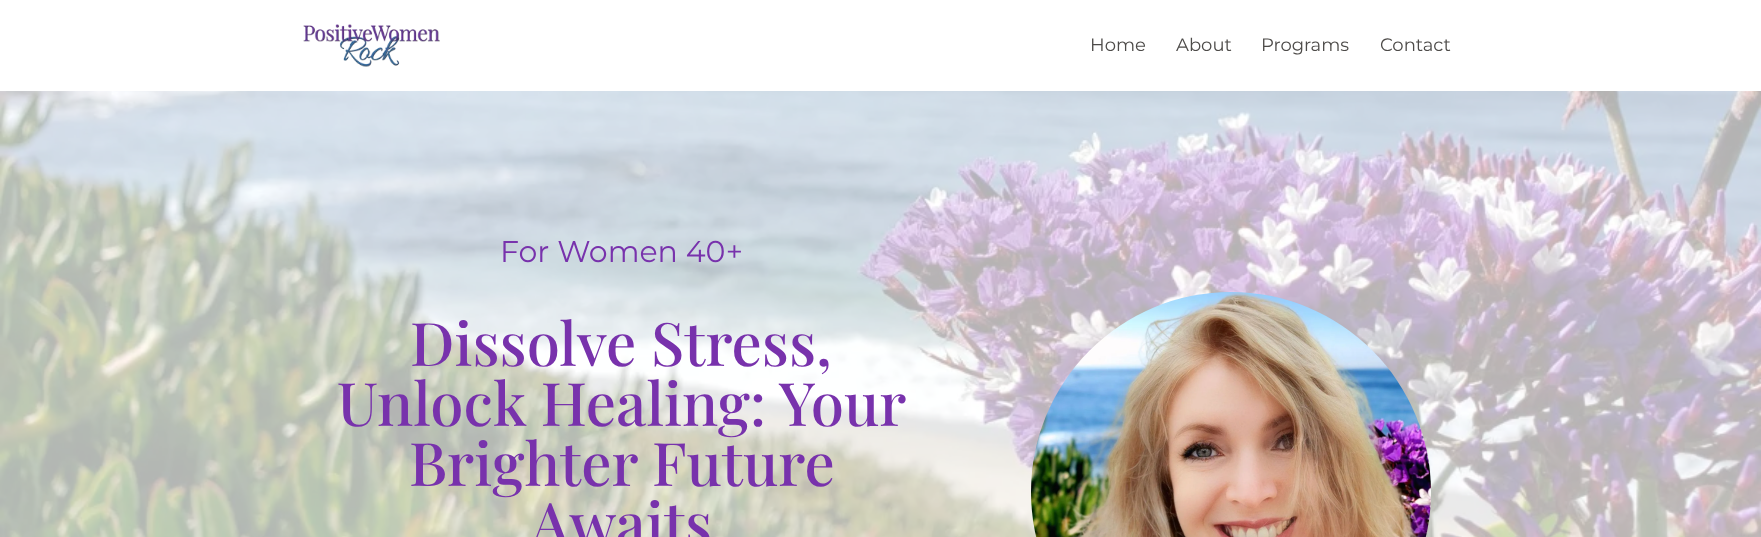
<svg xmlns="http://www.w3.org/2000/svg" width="1761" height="537">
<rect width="100%" height="100%" fill="#fff"/>
<image x="303" y="24" width="137" height="43" href="media/1.png"/>
<text x="1090" y="51" style="font-family:Montserrat;font-size:18px;fill:#4d4b49">Home</text>
<text x="1176" y="51" style="font-family:Montserrat;font-size:18px;fill:#4d4b49">About</text>
<text x="1261" y="51" style="font-family:Montserrat;font-size:18px;fill:#4d4b49">Programs</text>
<text x="1380" y="51" style="font-family:Montserrat;font-size:18px;fill:#4d4b49">Contact</text>
<image x="0" y="91" width="1761" height="446" href="media/2.png"/>
<text x="500" y="262" style="font-family:Montserrat;font-size:30px;fill:#7832ac">For Women 40+</text>
<text x="410" y="366" style="font-family:Playfair Display;font-size:60px;font-weight:500;fill:#7832ac">Dissolve Stress,</text>
<text x="337" y="426" style="font-family:Playfair Display;font-size:60px;font-weight:500;fill:#7832ac">Unlock Healing: Your</text>
<text x="409" y="486" style="font-family:Playfair Display;font-size:60px;font-weight:500;fill:#7832ac">Brighter Future</text>
<text x="531" y="546" style="font-family:Playfair Display;font-size:60px;font-weight:500;fill:#7832ac">Awaits</text>
<image x="1031" y="292" width="400" height="245" href="media/3.png"/>
</svg>
